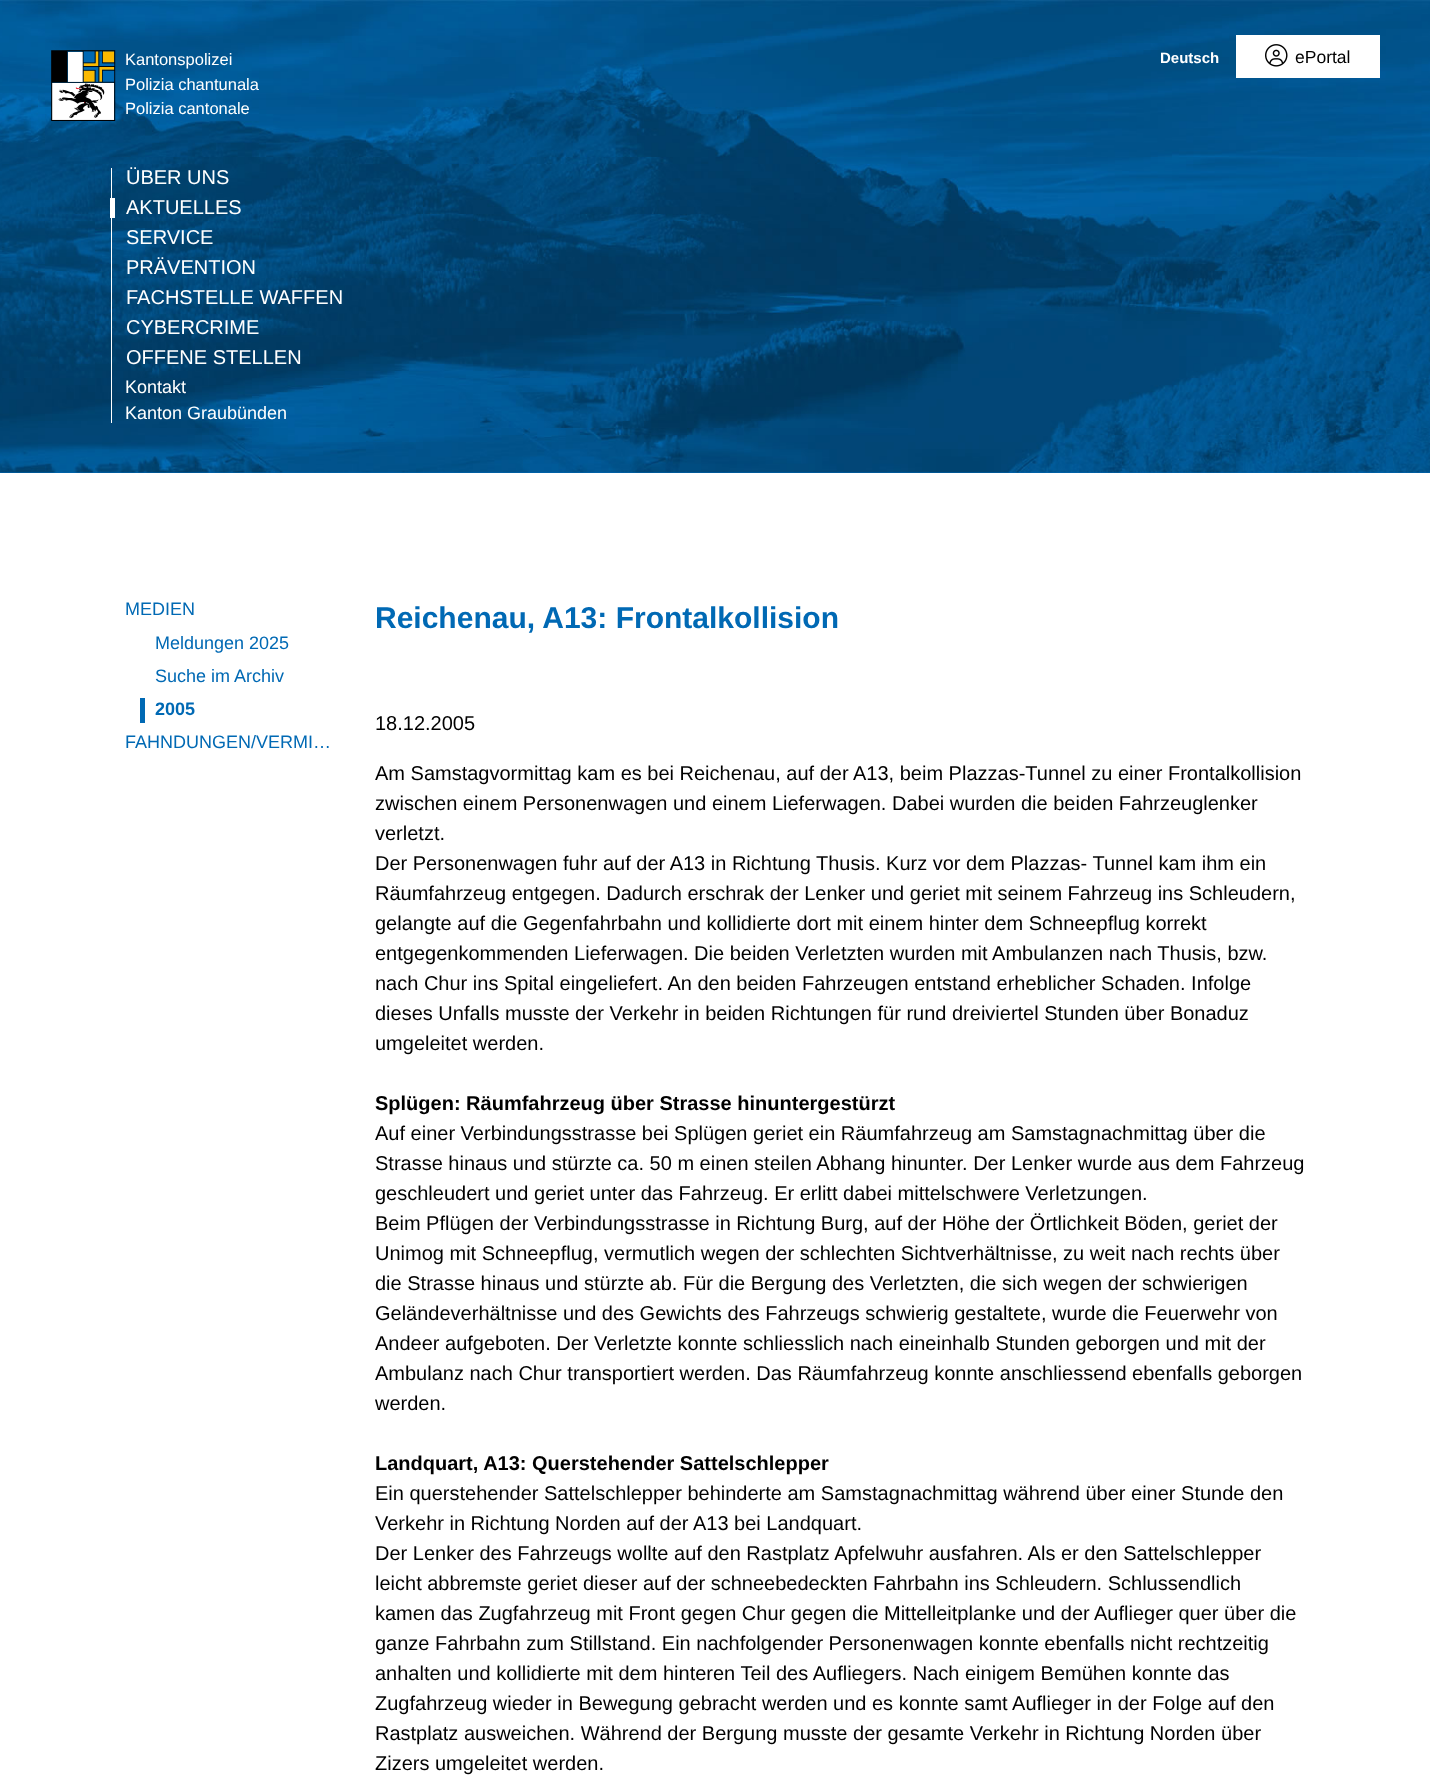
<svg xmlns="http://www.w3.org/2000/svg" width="1430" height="1782">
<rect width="100%" height="100%" fill="#fff"/>
<rect y="472" width="1430" height="1" fill="#0069b4"/>
<image x="0" y="0" width="1430" height="473" href="media/1.png"/>
<image x="51" y="50" width="65" height="71" href="media/2.png"/>
<text x="125" y="65" style="font-family:Liberation Sans;font-size:16.5px;fill:#fff">Kantonspolizei</text>
<text x="125" y="90" style="font-family:Liberation Sans;font-size:16.5px;fill:#fff">Polizia chantunala</text>
<text x="125" y="114" style="font-family:Liberation Sans;font-size:16.5px;fill:#fff">Polizia cantonale</text>
<text x="1160" y="63" style="font-family:Liberation Sans;font-size:15px;font-weight:bold;fill:#fff">Deutsch</text>
<rect x="1236" y="35" width="144" height="43" fill="#fff"/>
<image x="1265" y="44" width="23" height="23" href="media/3.png"/>
<text x="1295" y="63" style="font-family:Liberation Sans;font-size:17.5px;fill:#000">ePortal</text>
<rect x="111" y="168" width="1" height="255" fill="#fff"/>
<text x="126" y="184" style="font-family:Liberation Sans;font-size:20px;fill:#fff">ÜBER UNS</text>
<rect x="110" y="198" width="5" height="20" fill="#fff"/>
<text x="126" y="214" style="font-family:Liberation Sans;font-size:20px;fill:#fff">AKTUELLES</text>
<text x="126" y="244" style="font-family:Liberation Sans;font-size:20px;fill:#fff">SERVICE</text>
<text x="126" y="274" style="font-family:Liberation Sans;font-size:20px;fill:#fff">PRÄVENTION</text>
<text x="126" y="304" style="font-family:Liberation Sans;font-size:20px;fill:#fff">FACHSTELLE WAFFEN</text>
<text x="126" y="334" style="font-family:Liberation Sans;font-size:20px;fill:#fff">CYBERCRIME</text>
<text x="126" y="364" style="font-family:Liberation Sans;font-size:20px;fill:#fff">OFFENE STELLEN</text>
<text x="125" y="393" style="font-family:Liberation Sans;font-size:18px;fill:#fff">Kontakt</text>
<text x="125" y="419" style="font-family:Liberation Sans;font-size:18px;fill:#fff">Kanton Graubünden</text>
<text x="125" y="615" style="font-family:Liberation Sans;font-size:18px;fill:#0069b4">MEDIEN</text>
<text x="155" y="649" style="font-family:Liberation Sans;font-size:18px;fill:#0069b4">Meldungen 2025</text>
<text x="155" y="682" style="font-family:Liberation Sans;font-size:18px;fill:#0069b4">Suche im Archiv</text>
<rect x="140" y="698" width="5" height="25" fill="#0069b4"/>
<text x="155" y="715" style="font-family:Liberation Sans;font-size:18px;font-weight:bold;fill:#0069b4">2005</text>
<text x="125" y="748" style="font-family:Liberation Sans;font-size:18px;fill:#0069b4">FAHNDUNGEN/VERMI…</text>
<text x="375" y="628" style="font-family:Liberation Sans;font-size:30px;font-weight:bold;fill:#0069b4">Reichenau, A13: Frontalkollision</text>
<text x="375" y="730" style="font-family:Liberation Sans;font-size:20px;fill:#000">18.12.2005</text>
<text x="375" y="780" style="font-family:Liberation Sans;font-size:20px;fill:#000">Am Samstagvormittag kam es bei Reichenau, auf der A13, beim Plazzas-Tunnel zu einer Frontalkollision</text>
<text x="375" y="810" style="font-family:Liberation Sans;font-size:20px;fill:#000">zwischen einem Personenwagen und einem Lieferwagen. Dabei wurden die beiden Fahrzeuglenker</text>
<text x="375" y="840" style="font-family:Liberation Sans;font-size:20px;fill:#000">verletzt.</text>
<text x="375" y="870" style="font-family:Liberation Sans;font-size:20px;fill:#000">Der Personenwagen fuhr auf der A13 in Richtung Thusis. Kurz vor dem Plazzas- Tunnel kam ihm ein</text>
<text x="375" y="900" style="font-family:Liberation Sans;font-size:20px;fill:#000">Räumfahrzeug entgegen. Dadurch erschrak der Lenker und geriet mit seinem Fahrzeug ins Schleudern,</text>
<text x="375" y="930" style="font-family:Liberation Sans;font-size:20px;fill:#000">gelangte auf die Gegenfahrbahn und kollidierte dort mit einem hinter dem Schneepflug korrekt</text>
<text x="375" y="960" style="font-family:Liberation Sans;font-size:20px;fill:#000">entgegenkommenden Lieferwagen. Die beiden Verletzten wurden mit Ambulanzen nach Thusis, bzw.</text>
<text x="375" y="990" style="font-family:Liberation Sans;font-size:20px;fill:#000">nach Chur ins Spital eingeliefert. An den beiden Fahrzeugen entstand erheblicher Schaden. Infolge</text>
<text x="375" y="1020" style="font-family:Liberation Sans;font-size:20px;fill:#000">dieses Unfalls musste der Verkehr in beiden Richtungen für rund dreiviertel Stunden über Bonaduz</text>
<text x="375" y="1050" style="font-family:Liberation Sans;font-size:20px;fill:#000">umgeleitet werden.</text>
<text x="375" y="1110" style="font-family:Liberation Sans;font-size:20px;font-weight:bold;fill:#000">Splügen: Räumfahrzeug über Strasse hinuntergestürzt</text>
<text x="375" y="1140" style="font-family:Liberation Sans;font-size:20px;fill:#000">Auf einer Verbindungsstrasse bei Splügen geriet ein Räumfahrzeug am Samstagnachmittag über die</text>
<text x="375" y="1170" style="font-family:Liberation Sans;font-size:20px;fill:#000">Strasse hinaus und stürzte ca. 50 m einen steilen Abhang hinunter. Der Lenker wurde aus dem Fahrzeug</text>
<text x="375" y="1200" style="font-family:Liberation Sans;font-size:20px;fill:#000">geschleudert und geriet unter das Fahrzeug. Er erlitt dabei mittelschwere Verletzungen.</text>
<text x="375" y="1230" style="font-family:Liberation Sans;font-size:20px;fill:#000">Beim Pflügen der Verbindungsstrasse in Richtung Burg, auf der Höhe der Örtlichkeit Böden, geriet der</text>
<text x="375" y="1260" style="font-family:Liberation Sans;font-size:20px;fill:#000">Unimog mit Schneepflug, vermutlich wegen der schlechten Sichtverhältnisse, zu weit nach rechts über</text>
<text x="375" y="1290" style="font-family:Liberation Sans;font-size:20px;fill:#000">die Strasse hinaus und stürzte ab. Für die Bergung des Verletzten, die sich wegen der schwierigen</text>
<text x="375" y="1320" style="font-family:Liberation Sans;font-size:20px;fill:#000">Geländeverhältnisse und des Gewichts des Fahrzeugs schwierig gestaltete, wurde die Feuerwehr von</text>
<text x="375" y="1350" style="font-family:Liberation Sans;font-size:20px;fill:#000">Andeer aufgeboten. Der Verletzte konnte schliesslich nach eineinhalb Stunden geborgen und mit der</text>
<text x="375" y="1380" style="font-family:Liberation Sans;font-size:20px;fill:#000">Ambulanz nach Chur transportiert werden. Das Räumfahrzeug konnte anschliessend ebenfalls geborgen</text>
<text x="375" y="1410" style="font-family:Liberation Sans;font-size:20px;fill:#000">werden.</text>
<text x="375" y="1470" style="font-family:Liberation Sans;font-size:20px;font-weight:bold;fill:#000">Landquart, A13: Querstehender Sattelschlepper</text>
<text x="375" y="1500" style="font-family:Liberation Sans;font-size:20px;fill:#000">Ein querstehender Sattelschlepper behinderte am Samstagnachmittag während über einer Stunde den</text>
<text x="375" y="1530" style="font-family:Liberation Sans;font-size:20px;fill:#000">Verkehr in Richtung Norden auf der A13 bei Landquart.</text>
<text x="375" y="1560" style="font-family:Liberation Sans;font-size:20px;fill:#000">Der Lenker des Fahrzeugs wollte auf den Rastplatz Apfelwuhr ausfahren. Als er den Sattelschlepper</text>
<text x="375" y="1590" style="font-family:Liberation Sans;font-size:20px;fill:#000">leicht abbremste geriet dieser auf der schneebedeckten Fahrbahn ins Schleudern. Schlussendlich</text>
<text x="375" y="1620" style="font-family:Liberation Sans;font-size:20px;fill:#000">kamen das Zugfahrzeug mit Front gegen Chur gegen die</text>
<text x="884" y="1620" style="font-family:Liberation Sans;font-size:20px;fill:#000">Mittelleitplanke und der</text>
<text x="1094" y="1620" style="font-family:Liberation Sans;font-size:20px;fill:#000">Auflieger quer über die</text>
<text x="375" y="1650" style="font-family:Liberation Sans;font-size:20px;fill:#000">ganze Fahrbahn zum Stillstand. Ein nachfolgender Personenwagen konnte ebenfalls nicht rechtzeitig</text>
<text x="375" y="1680" style="font-family:Liberation Sans;font-size:20px;fill:#000">anhalten und kollidierte mit dem hinteren Teil des Aufliegers. Nach einigem Bemühen konnte das</text>
<text x="375" y="1710" style="font-family:Liberation Sans;font-size:20px;fill:#000">Zugfahrzeug wieder in Bewegung gebracht werden und es konnte samt Auflieger in der Folge auf den</text>
<text x="375" y="1740" style="font-family:Liberation Sans;font-size:20px;fill:#000">Rastplatz ausweichen. Während der Bergung musste der gesamte Verkehr in Richtung Norden über</text>
<text x="375" y="1770" style="font-family:Liberation Sans;font-size:20px;fill:#000">Zizers umgeleitet werden.</text>
</svg>
